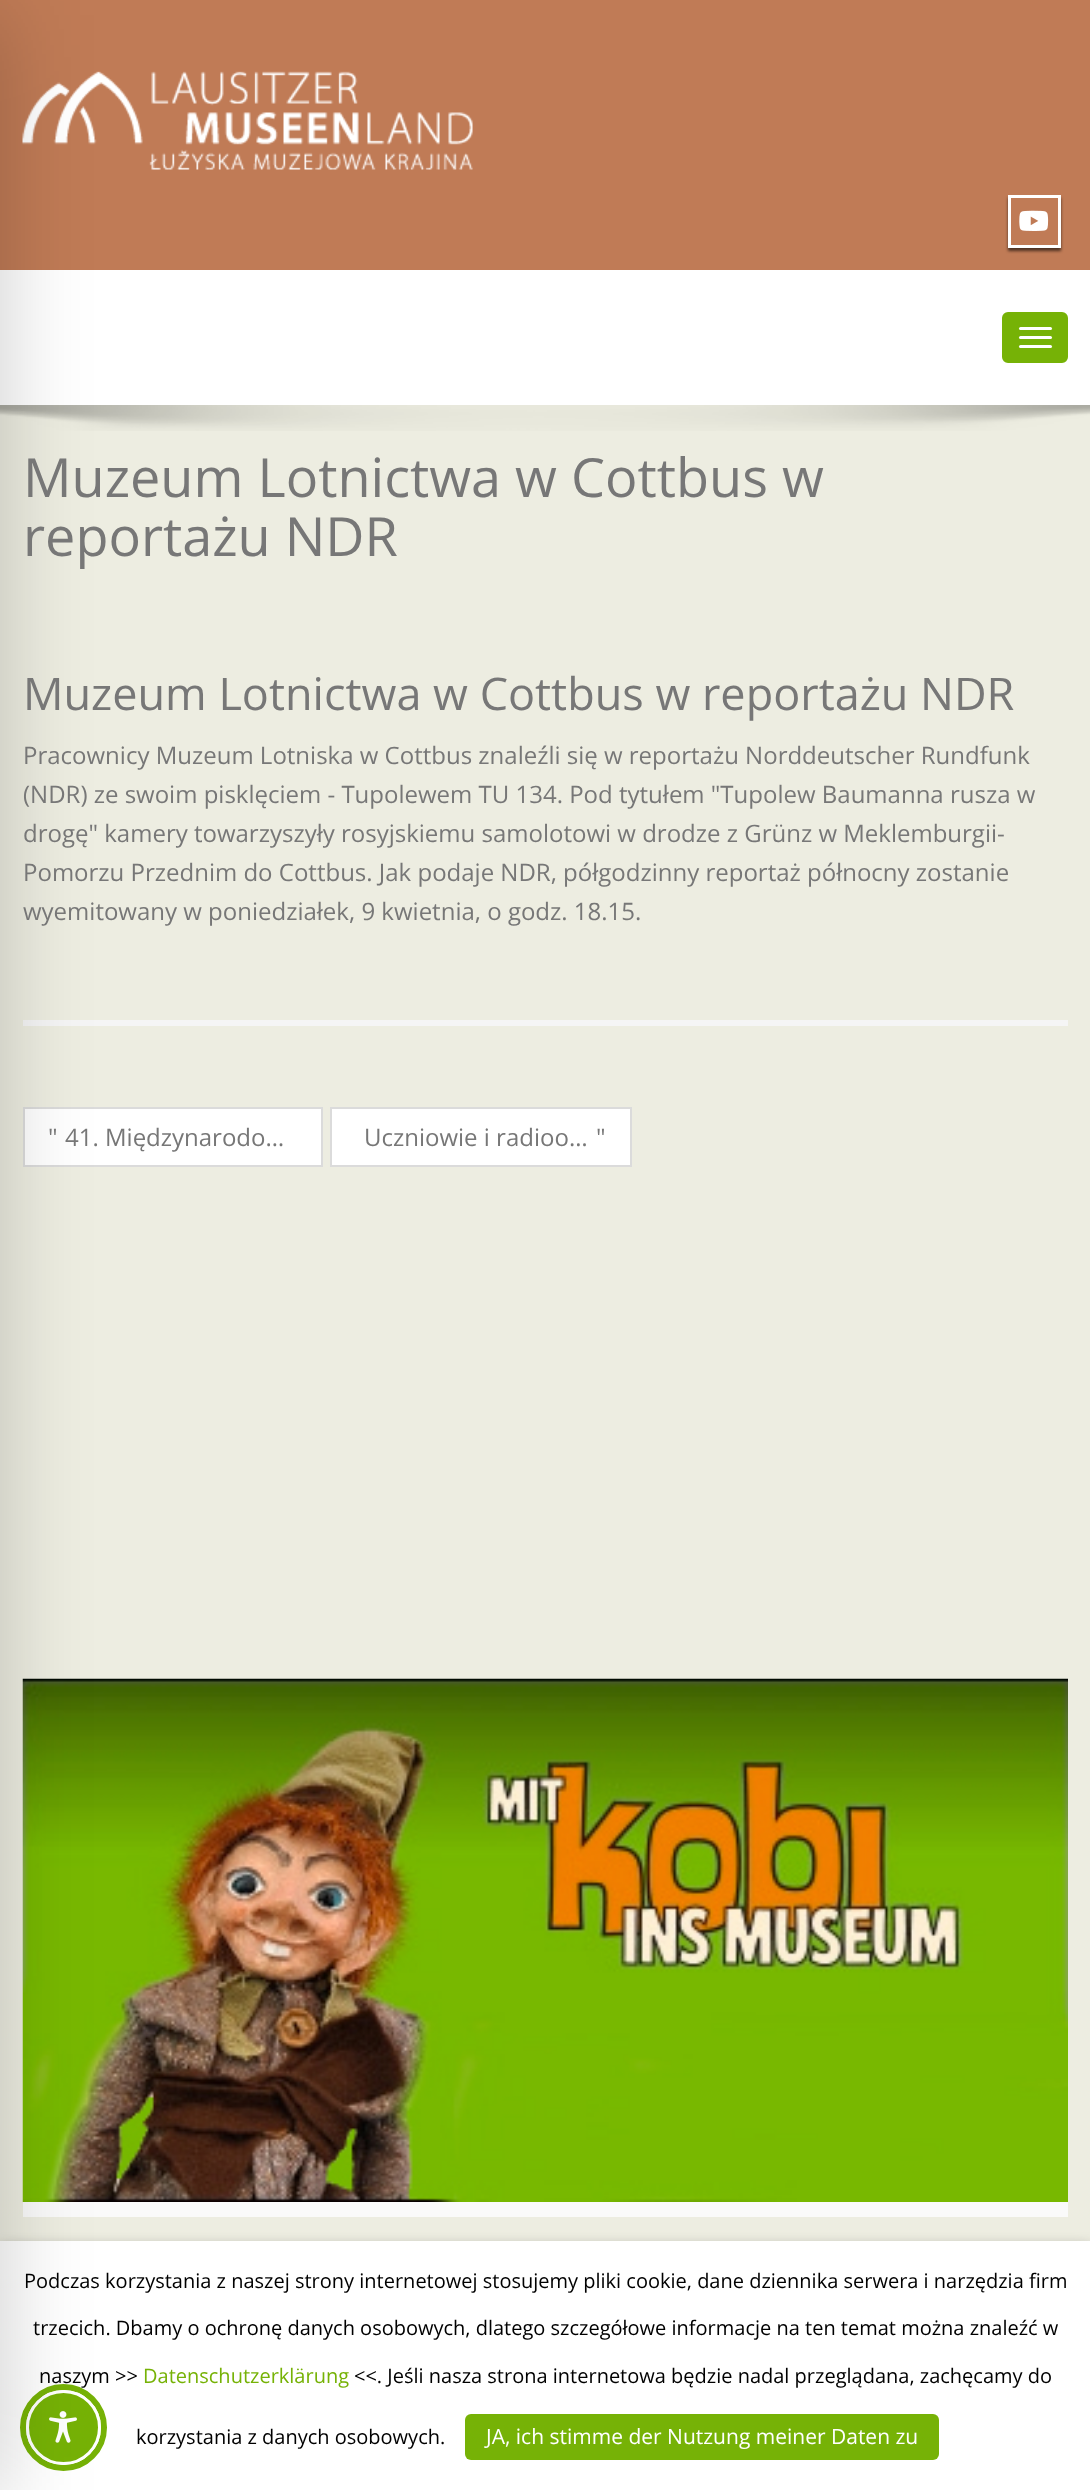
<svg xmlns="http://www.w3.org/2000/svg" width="1090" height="2490">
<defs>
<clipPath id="clip1"><path d="M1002 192h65v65h-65zm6 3h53v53h-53z" clip-rule="evenodd"/></clipPath>
</defs>
<rect width="100%" height="100%" fill="#edede1"/>
<rect width="1090" height="270" fill="#c07b56"/>
<image x="22" y="71" width="451" height="99" href="media/1.png"/>
<rect y="270" width="1090" height="135" fill="#fff"/>
<image x="0" y="405" width="1090" height="26" href="media/3.png"/>
<rect x="23" y="1020" width="1045" height="6" fill="#f5f5f5"/>
<rect x="24" y="1108" width="298" height="58" fill="#fff" stroke="#dbdbdb" stroke-width="2"/>
<rect x="23" y="2202" width="1045" height="15" fill="#fafafa"/>
<image x="22" y="1678" width="1046" height="524" href="media/4.png"/>
<rect y="2249" width="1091" height="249" fill="#00000080" filter="blur(7.5px)"/>
<rect y="2241" width="1090" height="249" fill="#fff"/>
<text x="39" y="2383" style="font-family:Open Sans;font-size:20px;fill:#000">naszym &gt;&gt;</text>
<circle cx="63.5" cy="2427.5" r="40.5" fill="none" stroke="#76b206" stroke-width="6"/>
<circle cx="63.5" cy="2427.5" r="36" fill="#76b206" stroke="#fff" stroke-width="3"/>
<image x="49" y="2411" width="28" height="32" href="media/5.png"/>
<rect x="-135" y="15" width="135" height="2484" fill="#00000033" filter="blur(45px)"/>
<g clip-path="url(#clip1)">
<rect x="1008" y="198" width="53" height="53" fill="#00000099" filter="blur(1.5px)"/>
</g>
<rect x="1009.5" y="196.5" width="50" height="50" fill="none" stroke="#fff" stroke-width="3"/>
<image x="1019" y="210" width="30" height="21" href="media/2.png"/>
<rect x="1003" y="313" width="64" height="49" rx="5" fill="#76b206" stroke="#76b206" stroke-width="2"/>
<rect x="1019" y="327" width="33" height="3" rx="1.5" fill="#fff"/>
<rect x="1019" y="336" width="33" height="3" rx="1.5" fill="#fff"/>
<rect x="1019" y="345" width="33" height="3" rx="1.5" fill="#fff"/>
<text x="23" y="497" style="font-family:Open Sans;font-size:54px;fill:#777">Muzeum Lotnictwa w Cottbus w</text>
<text x="23" y="556" style="font-family:Open Sans;font-size:54px;fill:#777">reportażu NDR</text>
<text x="23" y="710" style="font-family:Open Sans;font-size:45px;fill:#777">Muzeum Lotnictwa w Cottbus w reportażu NDR</text>
<text x="23" y="764" style="font-family:Open Sans;font-size:24px;fill:#777">Pracownicy Muzeum Lotniska w Cottbus znaleźli się w reportażu Norddeutscher Rundfunk</text>
<text x="23" y="803" style="font-family:Open Sans;font-size:24px;fill:#777">(NDR) ze swoim pisklęciem - Tupolewem TU 134. Pod tytułem "Tupolew Baumanna rusza w</text>
<text x="23" y="842" style="font-family:Open Sans;font-size:24px;fill:#777">drogę" kamery towarzyszyły rosyjskiemu samolotowi w drodze z Grünz w Meklemburgii-</text>
<text x="23" y="881" style="font-family:Open Sans;font-size:24px;fill:#777">Pomorzu Przednim do Cottbus. Jak podaje NDR, półgodzinny reportaż północny zostanie</text>
<text x="23" y="920" style="font-family:Open Sans;font-size:24px;fill:#777">wyemitowany w poniedziałek, 9 kwietnia, o godz. 18.15.</text>
<text x="48" y="1146" style="font-family:Open Sans;font-size:24px;fill:#777">"</text>
<text x="65" y="1146" style="font-family:Open Sans;font-size:24px;fill:#777">41. Międzynarodo…</text>
<rect x="331" y="1108" width="300" height="58" fill="#fff" stroke="#dbdbdb" stroke-width="2"/>
<text x="364" y="1146" style="font-family:Open Sans;font-size:24px;fill:#777">Uczniowie i radioo…</text>
<text x="596" y="1146" style="font-family:Open Sans;font-size:24px;fill:#777">"</text>
<text x="24" y="2288" style="font-family:Open Sans;font-size:20px;fill:#000">Podczas korzystania z naszej strony internetowej stosujemy pliki cookie, dane dziennika serwera i narzędzia firm</text>
<text x="33" y="2335" style="font-family:Open Sans;font-size:20px;fill:#000">trzecich. Dbamy o ochronę danych osobowych, dlatego szczegółowe informacje na ten temat można znaleźć w</text>
<text x="143" y="2383" style="font-family:Open Sans;font-size:20px;fill:#76b206">Datenschutzerklärung</text>
<text x="354" y="2383" style="font-family:Open Sans;font-size:20px;fill:#000">&lt;&lt;. Jeśli nasza strona internetowa będzie nadal przeglądana, zachęcamy do</text>
<text x="136" y="2444" style="font-family:Open Sans;font-size:20px;fill:#000">korzystania z danych osobowych.</text>
<rect x="465" y="2414" width="474" height="46" rx="6" fill="#76b206"/>
<text x="486" y="2444" style="font-family:Open Sans;font-size:21px;fill:#fff">JA, ich stimme der Nutzung meiner Daten zu</text>
</svg>
